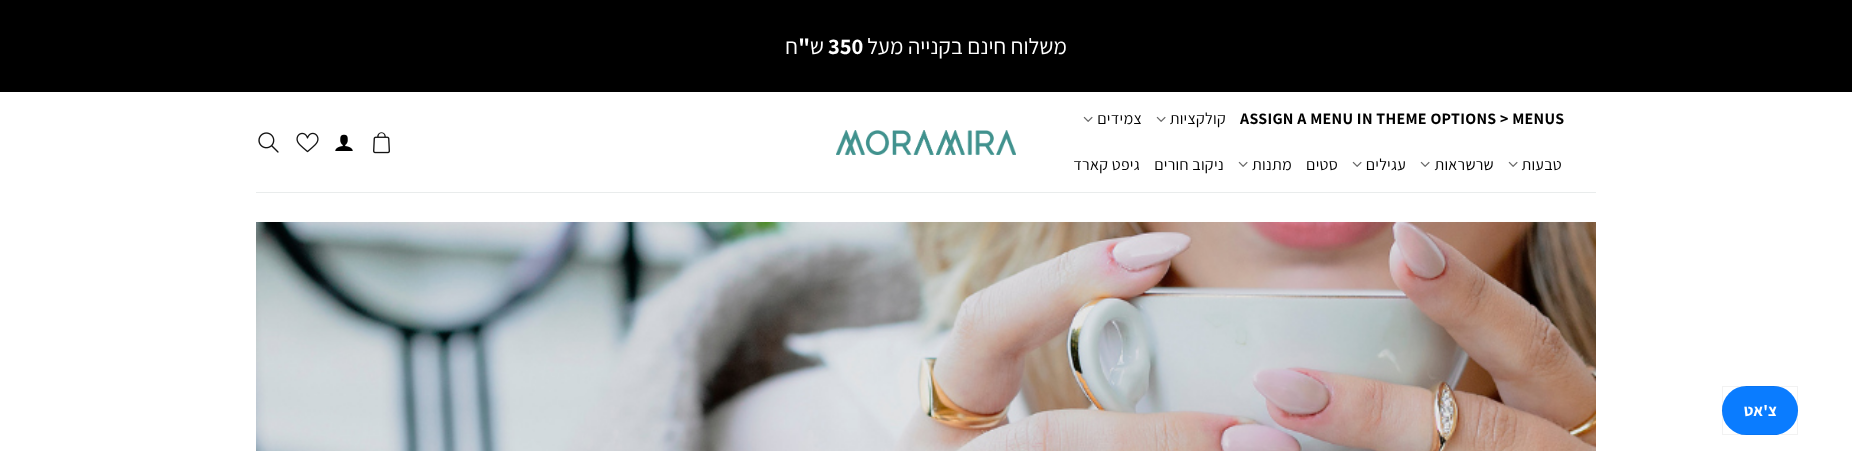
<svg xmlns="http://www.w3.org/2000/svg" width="1852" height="451">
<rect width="100%" height="100%" fill="#fff"/>
<rect width="1852" height="92" fill="#000"/>
<text x="1067" y="54" style="font-family:Assistant;font-size:22.5px;direction:rtl;fill:#fff">משלוח חינם בקנייה מעל</text>
<text x="828" y="54" style="font-family:'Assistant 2';font-size:22.5px;font-weight:bold;fill:#fff">350</text>
<text x="824" y="54" style="font-family:Assistant;font-size:22.5px;direction:rtl;fill:#fff">ש</text>
<text x="810" y="54" style="font-family:'Assistant 2';font-size:22.5px;font-weight:bold;direction:rtl;fill:#fff">"</text>
<text x="798" y="54" style="font-family:Assistant;font-size:22.5px;direction:rtl;fill:#fff">ח</text>
<text x="1240" y="124" style="font-family:'Assistant 2';font-size:16px;font-weight:bold;letter-spacing:0.3px;fill:#000">ASSIGN A MENU IN THEME OPTIONS &gt; MENUS</text>
<text x="1226" y="124" style="font-family:Assistant;font-size:16px;letter-spacing:0.3px;direction:rtl;fill:#000">קולקציות</text>
<image x="1156" y="116" width="10" height="6" href="media/1.png"/>
<text x="1142" y="124" style="font-family:Assistant;font-size:16px;letter-spacing:0.3px;direction:rtl;fill:#000">צמידים</text>
<image x="1083" y="116" width="10" height="6" href="media/1.png"/>
<text x="1562" y="170" style="font-family:Assistant;font-size:16px;letter-spacing:0.3px;direction:rtl;fill:#000">טבעות</text>
<image x="1508" y="161" width="10" height="6" href="media/1.png"/>
<text x="1494" y="170" style="font-family:Assistant;font-size:16px;letter-spacing:0.3px;direction:rtl;fill:#000">שרשראות</text>
<image x="1420" y="161" width="10" height="6" href="media/1.png"/>
<text x="1406" y="170" style="font-family:Assistant;font-size:16px;letter-spacing:0.3px;direction:rtl;fill:#000">עגילים</text>
<image x="1352" y="161" width="10" height="6" href="media/1.png"/>
<text x="1338" y="170" style="font-family:Assistant;font-size:16px;letter-spacing:0.3px;direction:rtl;fill:#000">סטים</text>
<text x="1292" y="170" style="font-family:Assistant;font-size:16px;letter-spacing:0.3px;direction:rtl;fill:#000">מתנות</text>
<image x="1238" y="161" width="10" height="6" href="media/1.png"/>
<text x="1224" y="170" style="font-family:Assistant;font-size:16px;letter-spacing:0.3px;direction:rtl;fill:#000">ניקוב חורים</text>
<text x="1140" y="170" style="font-family:Assistant;font-size:16px;letter-spacing:0.3px;direction:rtl;fill:#000">גיפט קארד</text>
<image x="836" y="130" width="180" height="25" href="media/2.png"/>
<image x="373" y="132" width="17" height="22" href="media/3.png"/>
<image x="335" y="134" width="18" height="17" href="media/4.png"/>
<image x="296" y="132" width="23" height="21" href="media/5.png"/>
<image x="258" y="132" width="21" height="21" href="media/6.png"/>
<rect x="256" y="192" width="1340" height="1" fill="#e9ecec"/>
<rect x="1722" y="386" width="76" height="49" rx="24.5" fill="#0a7cff"/>
<rect x="1722.5" y="386.5" width="75" height="48" fill="none" stroke="#0000000d"/>
<text x="1777" y="416" style="font-family:Assistant;font-size:16px;font-weight:bold;direction:rtl;fill:#fff">צ</text>
<text x="1768" y="416" style="font-family:'Assistant 2';font-size:16px;font-weight:bold;direction:rtl;fill:#fff">'</text>
<text x="1763" y="416" style="font-family:Assistant;font-size:16px;font-weight:bold;direction:rtl;fill:#fff">אט</text>
<image x="256" y="222" width="1340" height="229" href="media/7.png"/>
</svg>
